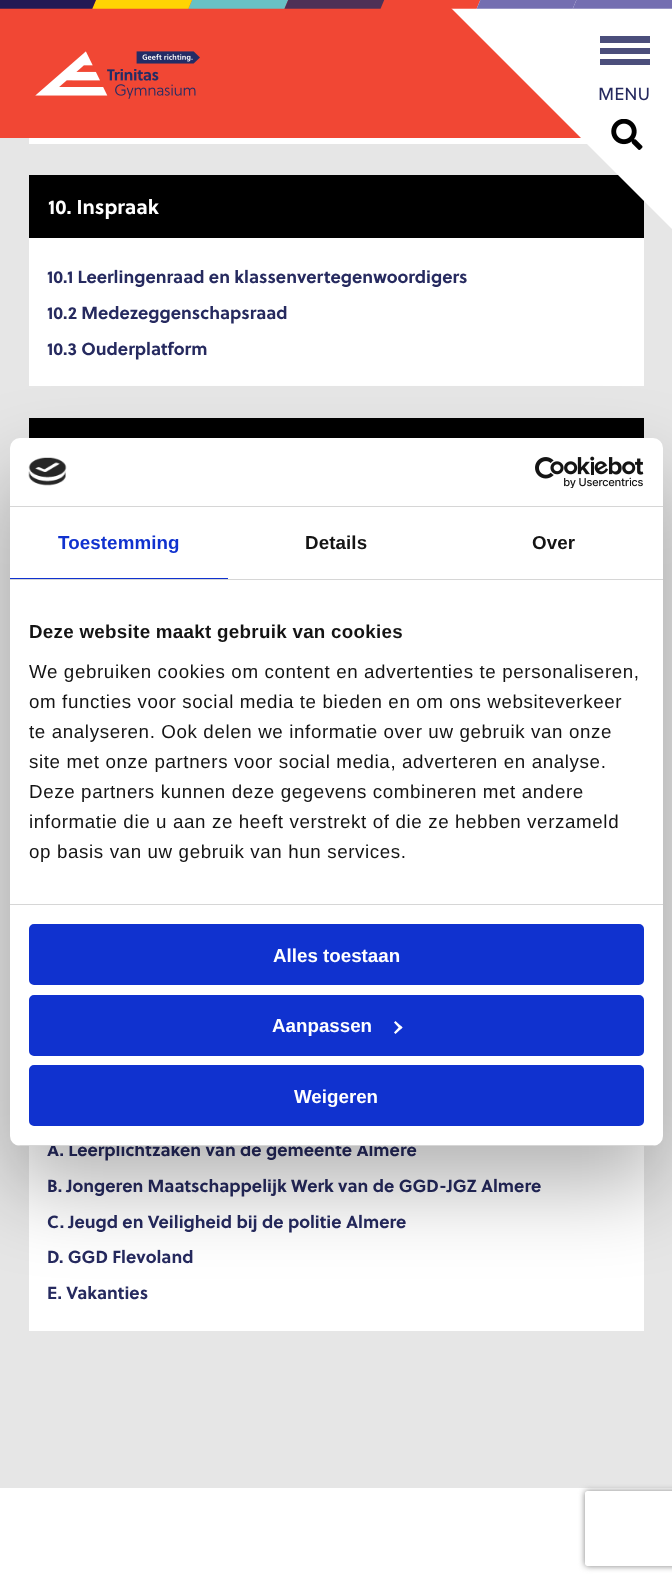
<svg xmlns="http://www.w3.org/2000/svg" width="672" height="1583">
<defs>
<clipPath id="clip1"><rect x="10" y="438" width="653" height="708" rx="10"/></clipPath>
<clipPath id="clip2"><path d="M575 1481h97v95h-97zm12.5 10h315c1.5 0 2.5 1 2.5 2.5v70c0 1.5-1 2.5-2.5 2.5h-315c-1.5 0-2.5-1-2.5-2.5v-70c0-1.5 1-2.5 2.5-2.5z" clip-rule="evenodd"/></clipPath>
</defs>
<rect width="100%" height="100%" fill="#fff"/>
<rect width="581" height="138" fill="#f14734"/>
<rect y="138" width="672" height="1350" fill="#e6e6e6"/>
<rect x="29" y="138" width="558" height="6" fill="#fff"/>
<rect x="29" y="175" width="615" height="63" fill="#000"/>
<path d="M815-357l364 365l-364 364l-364-364z" fill="#fff"/>
<image x="0" y="0" width="672" height="9" href="media/1.png"/>
<image x="35" y="51" width="165" height="48" href="media/2.png"/>
<rect x="600" y="48" width="50" height="6" fill="#4b4e7b"/>
<rect x="600" y="36" width="50" height="7" fill="#4b4e7b"/>
<rect x="600" y="59" width="50" height="6" fill="#4b4e7b"/>
<text x="598" y="100" style="font-family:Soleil;font-size:17.5px;fill:#262a5f">MENU</text>
<image x="611" y="119" width="32" height="31" href="media/3.png"/>
<rect x="29" y="238" width="615" height="148" fill="#fff"/>
<text x="48" y="214" style="font-family:Soleil;font-size:20px;font-weight:bold;fill:#fff">10. Inspraak</text>
<text x="47" y="283" style="font-family:Soleil;font-size:17.5px;font-weight:bold;fill:#262a5f">10.1 Leerlingenraad en klassenvertegenwoordigers</text>
<text x="47" y="319" style="font-family:Soleil;font-size:17.5px;font-weight:bold;fill:#262a5f">10.2 Medezeggenschapsraad</text>
<text x="47" y="355" style="font-family:Soleil;font-size:17.5px;font-weight:bold;fill:#262a5f">10.3 Ouderplatform</text>
<rect x="29" y="418" width="615" height="20" fill="#000"/>
<rect x="29" y="1146" width="615" height="185" fill="#fff"/>
<text x="47" y="1156" style="font-family:Soleil;font-size:17.5px;font-weight:bold;fill:#262a5f">A. Leerplichtzaken van de gemeente Almere</text>
<text x="47" y="1192" style="font-family:Soleil;font-size:17.5px;font-weight:bold;fill:#262a5f">B. Jongeren Maatschappelijk Werk van de GGD-JGZ Almere</text>
<text x="47" y="1228" style="font-family:Soleil;font-size:17.5px;font-weight:bold;fill:#262a5f">C. Jeugd en Veiligheid bij de politie Almere</text>
<text x="47" y="1263" style="font-family:Soleil;font-size:17.5px;font-weight:bold;fill:#262a5f">D. GGD Flevoland</text>
<text x="47" y="1299" style="font-family:Soleil;font-size:17.5px;font-weight:bold;fill:#262a5f">E. Vakanties</text>
<rect x="10" y="478" width="653" height="708" rx="10" fill="#0000004d" filter="blur(42.5px)"/>
<rect x="10" y="438" width="653" height="708" rx="10" fill="#fff"/>
<rect x="10" y="506" width="653" height="1" fill="#d6d6d6"/>
<image x="28" y="457" width="39" height="29" href="media/4.png"/>
<image x="535" y="456" width="109" height="32" href="media/5.png"/>
<rect x="10" y="579" width="653" height="1" fill="#d6d6d6"/>
<rect x="10" y="578" width="218" height="1" fill="#1032cf"/>
<text x="58" y="549" style="font-family:Liberation Sans;font-size:18.75px;font-weight:bold;letter-spacing:0.1px;fill:#1032cf">Toestemming</text>
<text x="305" y="549" style="font-family:Liberation Sans;font-size:18.75px;font-weight:bold;letter-spacing:0.1px;fill:#141414">Details</text>
<text x="532" y="549" style="font-family:Liberation Sans;font-size:18.75px;font-weight:bold;letter-spacing:0.1px;fill:#141414">Over</text>
<rect x="10" y="904" width="653" height="1" fill="#d6d6d6"/>
<text x="29" y="638" style="font-family:Liberation Sans;font-size:18.75px;font-weight:bold;letter-spacing:0.3px;fill:#141414">Deze website maakt gebruik van cookies</text>
<text x="29" y="678" style="font-family:Liberation Sans;font-size:18.75px;letter-spacing:0.62px;fill:#141414">We gebruiken cookies om content en advertenties te personaliseren,</text>
<text x="29" y="708" style="font-family:Liberation Sans;font-size:18.75px;letter-spacing:0.62px;fill:#141414">om functies voor social media te bieden en om ons websiteverkeer</text>
<text x="29" y="738" style="font-family:Liberation Sans;font-size:18.75px;letter-spacing:0.62px;fill:#141414">te analyseren. Ook delen we informatie over uw gebruik van onze</text>
<text x="29" y="768" style="font-family:Liberation Sans;font-size:18.75px;letter-spacing:0.62px;fill:#141414">site met onze partners voor social media, adverteren en analyse.</text>
<text x="29" y="798" style="font-family:Liberation Sans;font-size:18.75px;letter-spacing:0.62px;fill:#141414">Deze partners kunnen deze gegevens combineren met andere</text>
<text x="29" y="828" style="font-family:Liberation Sans;font-size:18.75px;letter-spacing:0.62px;fill:#141414">informatie die u aan ze heeft verstrekt of die ze hebben verzameld</text>
<text x="29" y="858" style="font-family:Liberation Sans;font-size:18.75px;letter-spacing:0.62px;fill:#141414">op basis van uw gebruik van hun services.</text>
<g clip-path="url(#clip1)">
<rect x="10" y="1145" width="653" height="1" fill="#d6d6d6"/>
</g>
<rect x="30.5" y="925.5" width="612" height="58" rx="3.5" fill="#1032cf" stroke="#1032cf" stroke-width="3"/>
<text x="273" y="962" style="font-family:Liberation Sans;font-size:18.75px;font-weight:bold;fill:#fff">Alles toestaan</text>
<rect x="30.5" y="996.5" width="612" height="58" rx="3.5" fill="#1032cf" stroke="#1032cf" stroke-width="3"/>
<text x="272" y="1032" style="font-family:Liberation Sans;font-size:18.75px;font-weight:bold;fill:#fff">Aanpassen</text>
<path d="M395.5 1021l7 6.5l-2 2l-6.5-7z" fill="#fff"/>
<path d="M400.5 1025.5l2 2l-7 6.5l-1.5-1.5z" fill="#fff"/>
<rect x="30.5" y="1066.5" width="612" height="58" rx="3.5" fill="#1032cf" stroke="#1032cf" stroke-width="3"/>
<text x="294" y="1103" style="font-family:Liberation Sans;font-size:18.75px;font-weight:bold;fill:#fff">Weigeren</text>
<g clip-path="url(#clip2)">
<rect x="585" y="1491" width="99" height="75" rx="2.5" fill="#808080" filter="blur(3px)"/>
</g>
</svg>
